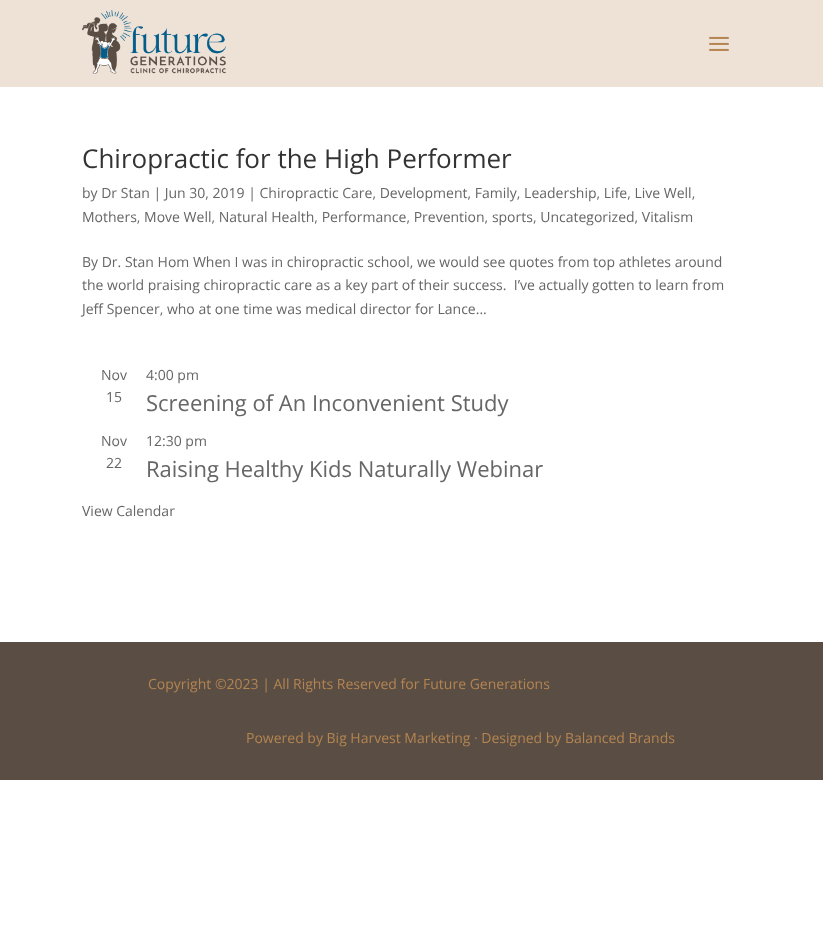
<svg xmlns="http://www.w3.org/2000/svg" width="823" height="943">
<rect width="100%" height="100%" fill="#fff"/>
<rect width="823" height="87" fill="#eee2d7"/>
<image x="82" y="10" width="144" height="64" href="media/1.png"/>
<image x="709" y="36" width="20" height="15" href="media/2.png"/>
<text x="82" y="168" style="font-family:Open Sans;font-size:26px;fill:#333">Chiropractic for the High Performer</text>
<text x="82" y="198" style="font-family:Open Sans;font-size:14px;fill:#666">by Dr Stan | Jun 30, 2019 | Chiropractic Care, Development, Family, Leadership, Life, Live Well,</text>
<text x="82" y="222" style="font-family:Open Sans;font-size:14px;fill:#666">Mothers, Move Well, Natural Health, Performance, Prevention, sports, Uncategorized, Vitalism</text>
<text x="82" y="267" style="font-family:Open Sans;font-size:14px;fill:#666">By Dr. Stan Hom When I was in chiropractic school, we would see quotes from top athletes around</text>
<text x="82" y="290" style="font-family:Open Sans;font-size:14px;fill:#666" xml:space="preserve">the world praising chiropractic care as a key part of their success.  I’ve actually gotten to learn from</text>
<text x="82" y="314" style="font-family:Open Sans;font-size:14px;fill:#666">Jeff Spencer, who at one time was medical director for Lance...</text>
<text x="101" y="380" style="font-family:Open Sans;font-size:14px;fill:#666">Nov</text>
<text x="106" y="402" style="font-family:Open Sans;font-size:14px;fill:#666">15</text>
<text x="146" y="380" style="font-family:Open Sans;font-size:14px;fill:#666">4:00 pm</text>
<text x="146" y="411" style="font-family:Open Sans;font-size:22px;fill:#666">Screening of An Inconvenient Study</text>
<text x="101" y="446" style="font-family:Open Sans;font-size:14px;fill:#666">Nov</text>
<text x="106" y="468" style="font-family:Open Sans;font-size:14px;fill:#666">22</text>
<text x="146" y="446" style="font-family:Open Sans;font-size:14px;fill:#666">12:30 pm</text>
<text x="146" y="477" style="font-family:Open Sans;font-size:22px;fill:#666">Raising Healthy Kids Naturally Webinar</text>
<text x="82" y="516" style="font-family:Open Sans;font-size:14px;fill:#666">View Calendar</text>
<rect y="642" width="823" height="138" fill="#5a4e44"/>
<text x="148" y="689" style="font-family:Open Sans;font-size:14px;fill:#b48451">Copyright ©2023 | All Rights Reserved for Future Generations</text>
<text x="246" y="743" style="font-family:Open Sans;font-size:14px;fill:#b48451">Powered by Big Harvest Marketing · Designed by Balanced Brands</text>
</svg>
